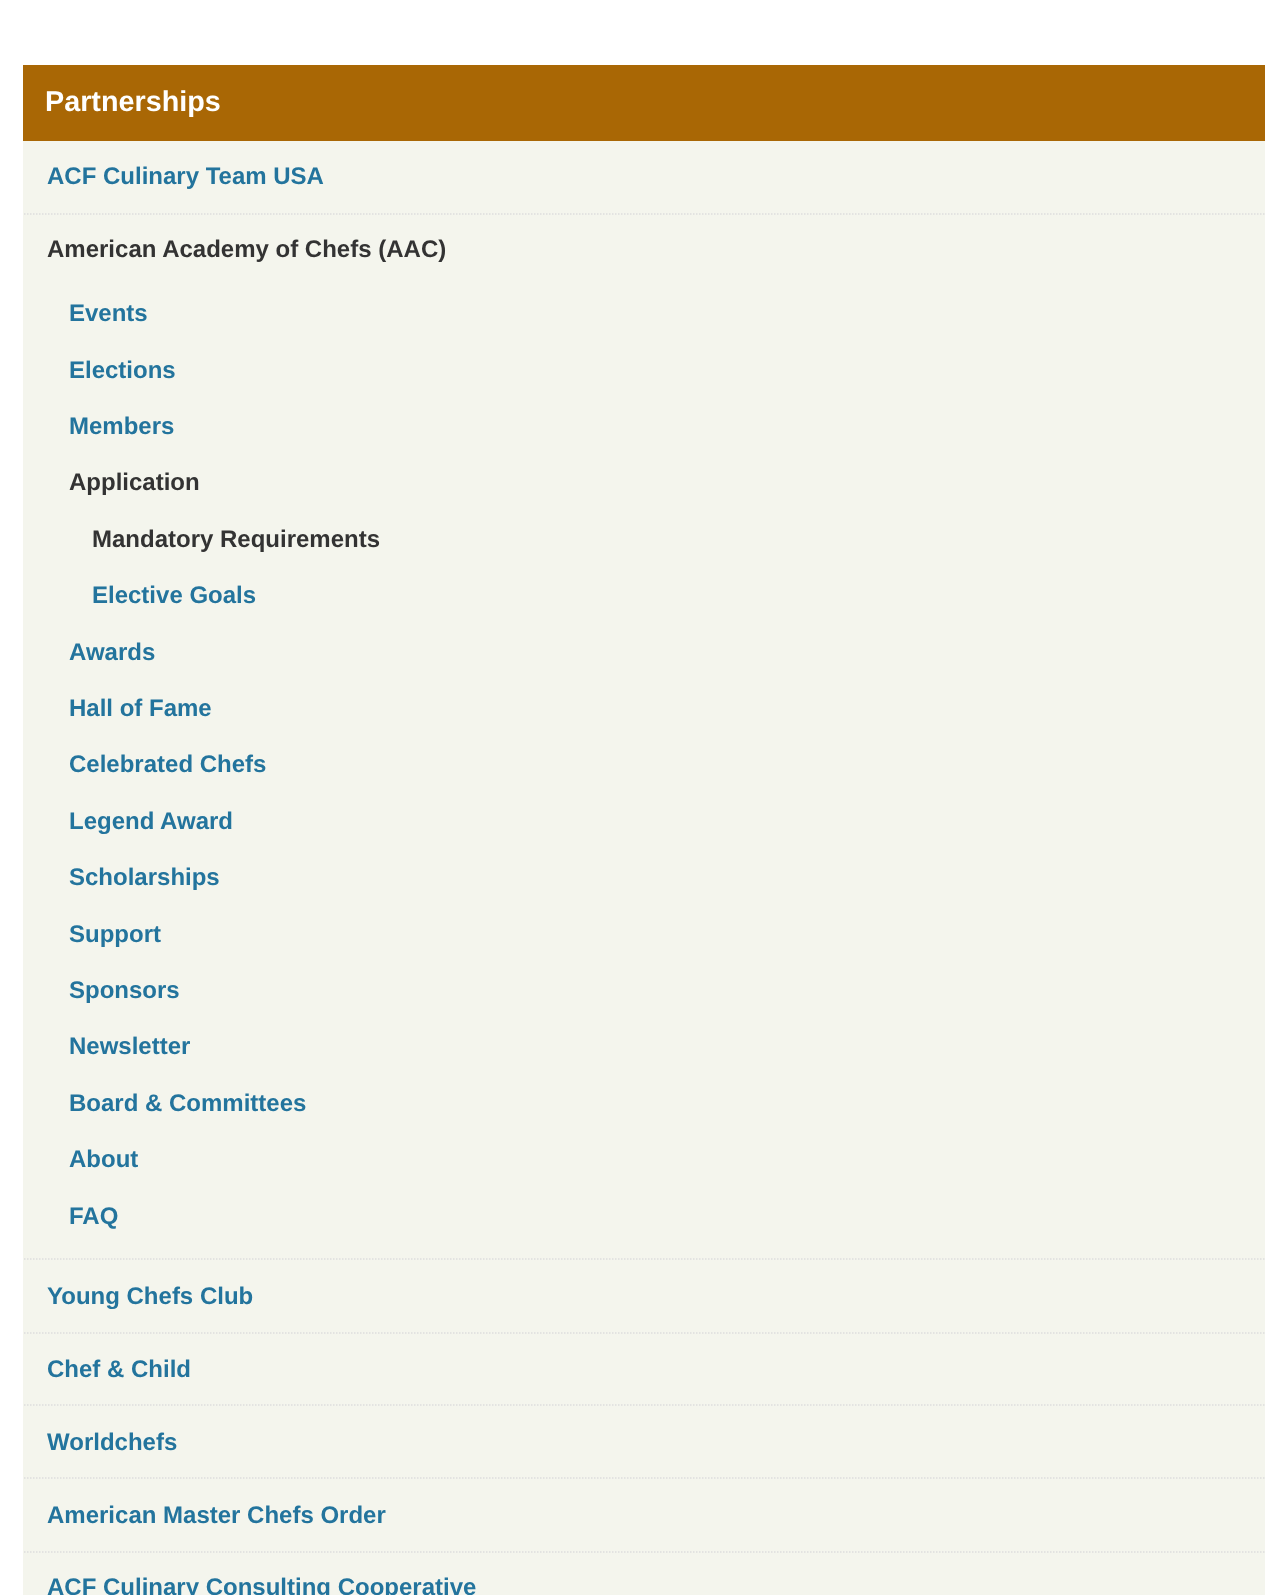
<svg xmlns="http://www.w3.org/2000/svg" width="1287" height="1595">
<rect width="100%" height="100%" fill="#fff"/>
<rect x="23" y="141" width="1242" height="1454" fill="#f4f5ed"/>
<rect x="23" y="65" width="1242" height="76" fill="#a96705"/>
<text x="45" y="111" style="font-family:Liberation Sans;font-size:28.75px;font-weight:bold;fill:#fff">Partnerships</text>
<text x="47" y="184" style="font-family:Liberation Sans;font-size:24px;font-weight:bold;fill:#23749d">ACF Culinary Team USA</text>
<path d="M24 214h1242" fill="none" stroke="#ddd" stroke-width="1.5" stroke-dasharray="1.5 1.5"/>
<text x="47" y="257" style="font-family:Liberation Sans;font-size:24px;font-weight:bold;fill:#333">American Academy of Chefs (AAC)</text>
<text x="69" y="321" style="font-family:Liberation Sans;font-size:24px;font-weight:bold;fill:#23749d">Events</text>
<text x="69" y="378" style="font-family:Liberation Sans;font-size:24px;font-weight:bold;fill:#23749d">Elections</text>
<text x="69" y="434" style="font-family:Liberation Sans;font-size:24px;font-weight:bold;fill:#23749d">Members</text>
<text x="69" y="490" style="font-family:Liberation Sans;font-size:24px;font-weight:bold;fill:#333">Application</text>
<text x="92" y="547" style="font-family:Liberation Sans;font-size:24px;font-weight:bold;fill:#333">Mandatory Requirements</text>
<text x="92" y="603" style="font-family:Liberation Sans;font-size:24px;font-weight:bold;fill:#23749d">Elective Goals</text>
<text x="69" y="660" style="font-family:Liberation Sans;font-size:24px;font-weight:bold;fill:#23749d">Awards</text>
<text x="69" y="716" style="font-family:Liberation Sans;font-size:24px;font-weight:bold;fill:#23749d">Hall of Fame</text>
<text x="69" y="772" style="font-family:Liberation Sans;font-size:24px;font-weight:bold;fill:#23749d">Celebrated Chefs</text>
<text x="69" y="829" style="font-family:Liberation Sans;font-size:24px;font-weight:bold;fill:#23749d">Legend Award</text>
<text x="69" y="885" style="font-family:Liberation Sans;font-size:24px;font-weight:bold;fill:#23749d">Scholarships</text>
<text x="69" y="942" style="font-family:Liberation Sans;font-size:24px;font-weight:bold;fill:#23749d">Support</text>
<text x="69" y="998" style="font-family:Liberation Sans;font-size:24px;font-weight:bold;fill:#23749d">Sponsors</text>
<text x="69" y="1054" style="font-family:Liberation Sans;font-size:24px;font-weight:bold;fill:#23749d">Newsletter</text>
<text x="69" y="1111" style="font-family:Liberation Sans;font-size:24px;font-weight:bold;fill:#23749d">Board &amp; Committees</text>
<text x="69" y="1167" style="font-family:Liberation Sans;font-size:24px;font-weight:bold;fill:#23749d">About</text>
<text x="69" y="1224" style="font-family:Liberation Sans;font-size:24px;font-weight:bold;fill:#23749d">FAQ</text>
<path d="M24 1259h1242" fill="none" stroke="#ddd" stroke-width="1.5" stroke-dasharray="1.5 1.5"/>
<text x="47" y="1304" style="font-family:Liberation Sans;font-size:24px;font-weight:bold;fill:#23749d">Young Chefs Club</text>
<path d="M24 1333h1242" fill="none" stroke="#ddd" stroke-width="1.5" stroke-dasharray="1.5 1.5"/>
<text x="47" y="1377" style="font-family:Liberation Sans;font-size:24px;font-weight:bold;fill:#23749d">Chef &amp; Child</text>
<path d="M24 1405h1242" fill="none" stroke="#ddd" stroke-width="1.5" stroke-dasharray="1.5 1.5"/>
<text x="47" y="1450" style="font-family:Liberation Sans;font-size:24px;font-weight:bold;fill:#23749d">Worldchefs</text>
<path d="M24 1478h1242" fill="none" stroke="#ddd" stroke-width="1.5" stroke-dasharray="1.5 1.5"/>
<text x="47" y="1523" style="font-family:Liberation Sans;font-size:24px;font-weight:bold;fill:#23749d">American Master Chefs Order</text>
<path d="M24 1552h1242" fill="none" stroke="#ddd" stroke-width="1.5" stroke-dasharray="1.5 1.5"/>
<text x="47" y="1595" style="font-family:Liberation Sans;font-size:24px;font-weight:bold;fill:#23749d">ACF Culinary Consulting Cooperative</text>
</svg>
